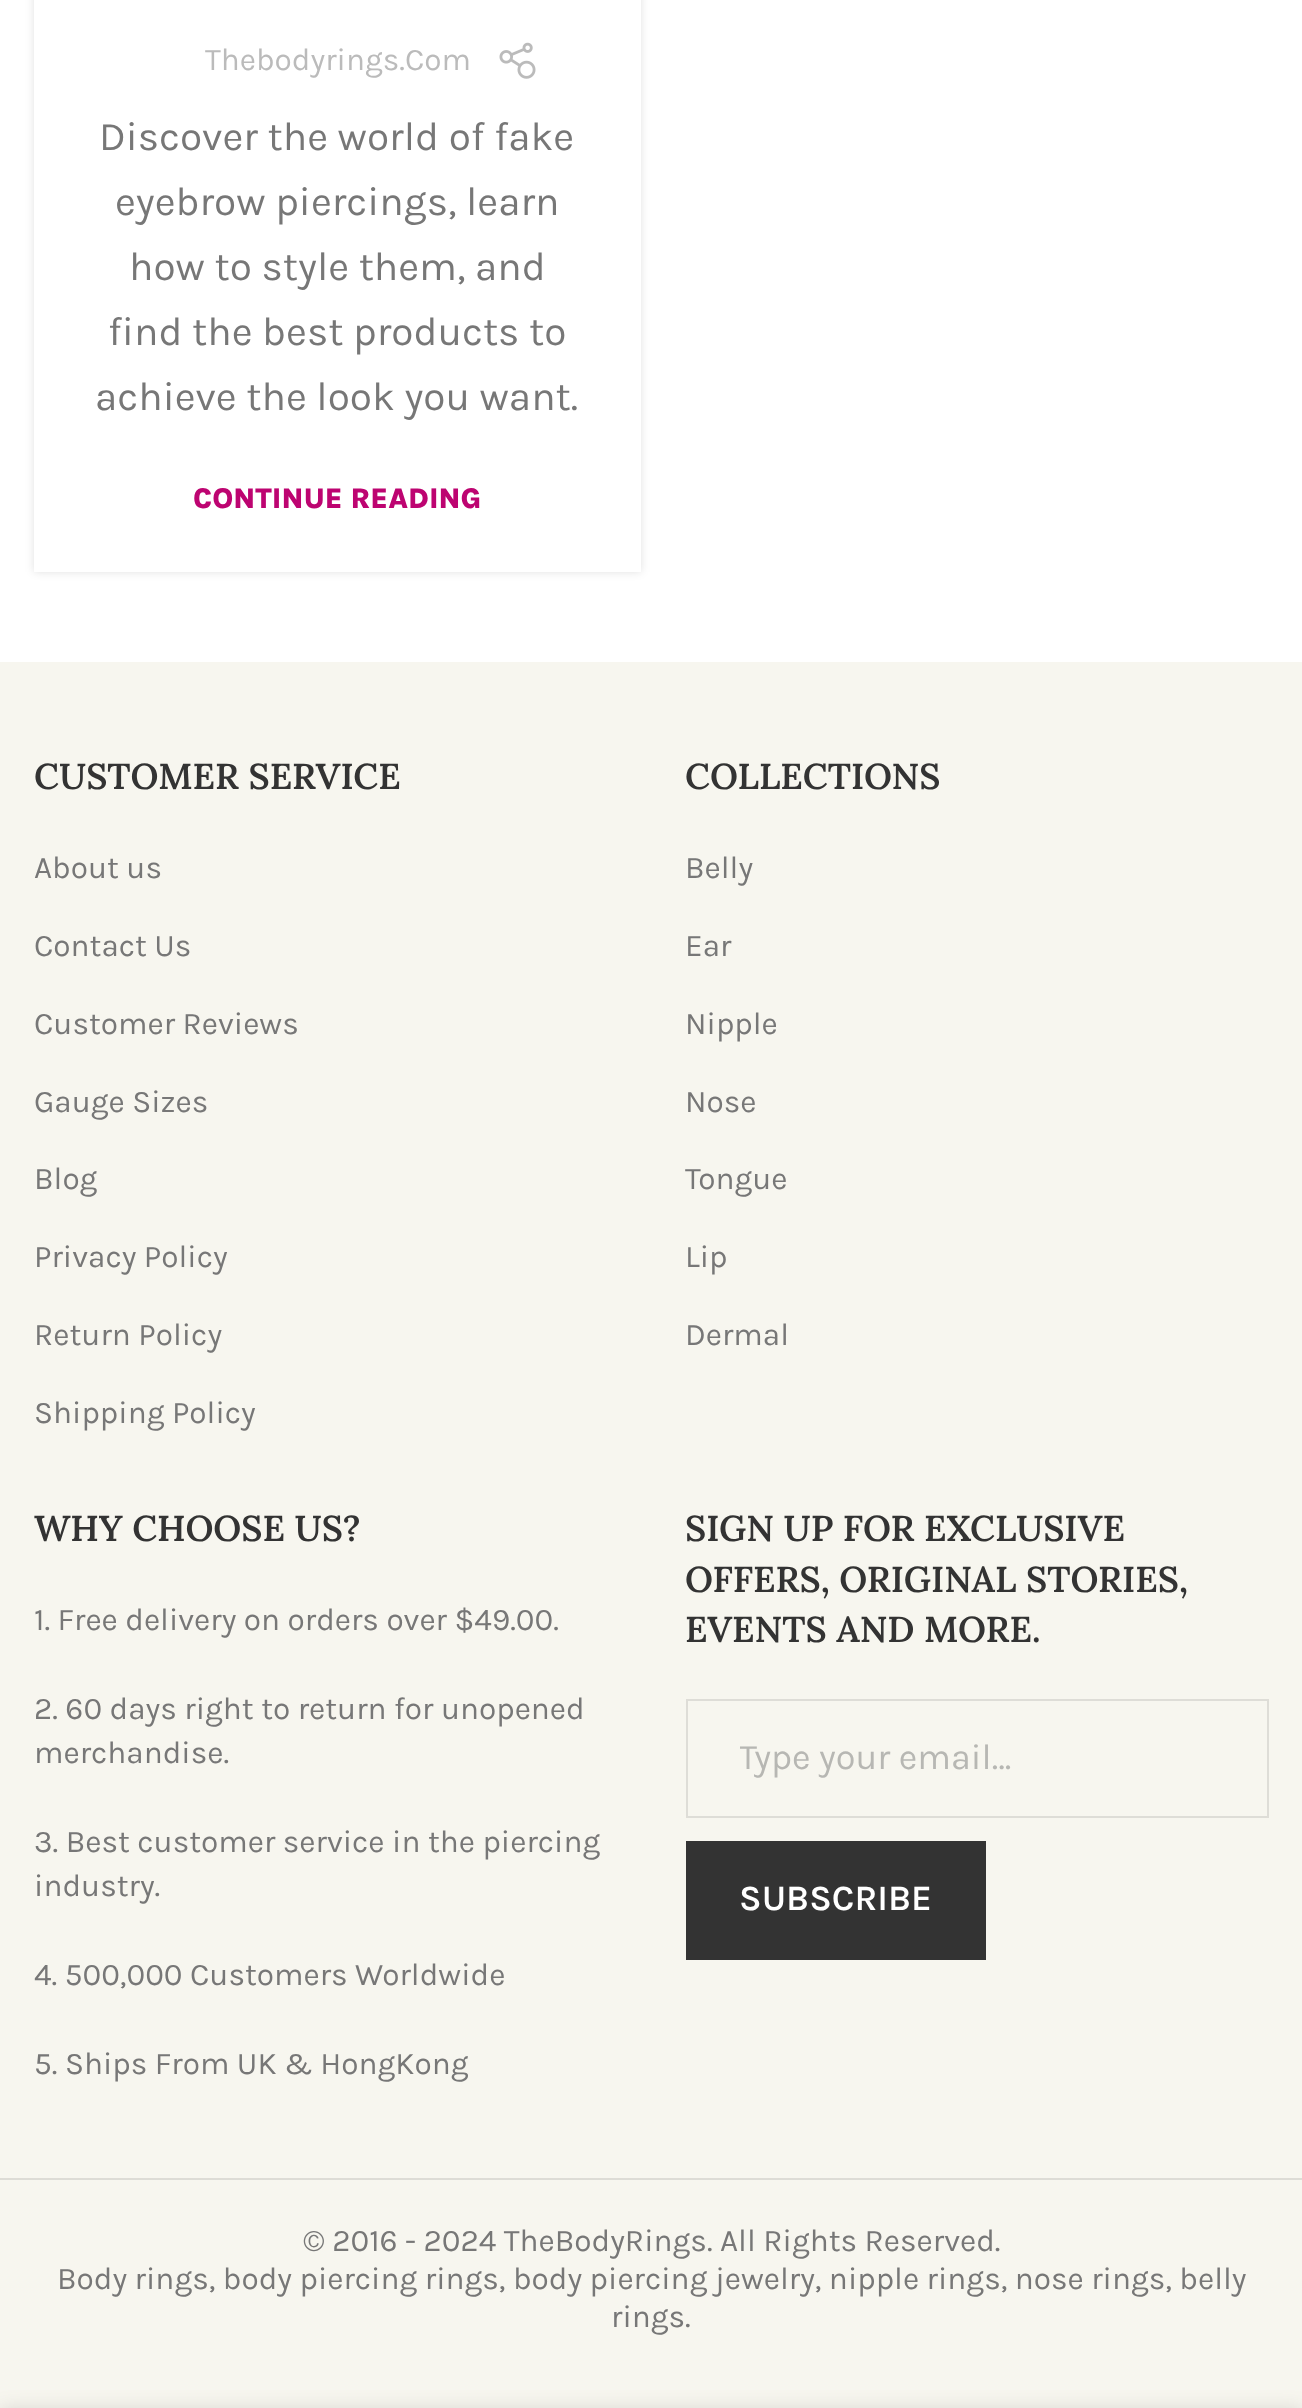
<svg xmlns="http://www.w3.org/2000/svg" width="1302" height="2408">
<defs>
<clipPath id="clip1"><rect x="740" y="1735" width="475" height="43"/></clipPath>
</defs>
<rect width="100%" height="100%" fill="#fff"/>
<rect x="34" y="-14" width="607" height="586" fill="#0000001f" filter="blur(4.5px)"/>
<rect x="34" width="607" height="572" fill="#fff"/>
<text x="205" y="70" style="font-family:Karla;font-size:31.5px;fill:#bbb">Thebodyrings.Com</text>
<image x="499" y="42" width="37" height="37" href="media/1.png"/>
<text x="99" y="150" style="font-family:Karla;font-size:40.5px;fill:#777">Discover the world of fake</text>
<text x="115" y="215" style="font-family:Karla;font-size:40.5px;fill:#777">eyebrow piercings, learn</text>
<text x="129" y="280" style="font-family:Karla;font-size:40.5px;fill:#777">how to style them, and</text>
<text x="108" y="345" style="font-family:Karla;font-size:40.5px;fill:#777">find the best products to</text>
<text x="95" y="410" style="font-family:Karla;font-size:40.5px;fill:#777">achieve the look you want.</text>
<text x="193" y="508" style="font-family:Karla;font-size:29.25px;font-weight:800;fill:#bd0471">CONTINUE READING</text>
<rect y="662" width="1302" height="1746" fill="#f7f6ef"/>
<text x="34" y="789" style="font-family:Lora;font-size:36px;font-weight:600;fill:#333">CUSTOMER SERVICE</text>
<text x="34" y="878" style="font-family:Karla;font-size:31.5px;fill:#777">About us</text>
<text x="34" y="956" style="font-family:Karla;font-size:31.5px;fill:#777">Contact Us</text>
<text x="34" y="1034" style="font-family:Karla;font-size:31.5px;fill:#777">Customer Reviews</text>
<text x="34" y="1112" style="font-family:Karla;font-size:31.5px;fill:#777">Gauge Sizes</text>
<text x="34" y="1189" style="font-family:Karla;font-size:31.5px;fill:#777">Blog</text>
<text x="34" y="1267" style="font-family:Karla;font-size:31.5px;fill:#777">Privacy Policy</text>
<text x="34" y="1345" style="font-family:Karla;font-size:31.5px;fill:#777">Return Policy</text>
<text x="34" y="1423" style="font-family:Karla;font-size:31.5px;fill:#777">Shipping Policy</text>
<text x="685" y="789" style="font-family:Lora;font-size:36px;font-weight:600;fill:#333">COLLECTIONS</text>
<text x="685" y="878" style="font-family:Karla;font-size:31.5px;fill:#777">Belly</text>
<text x="685" y="956" style="font-family:Karla;font-size:31.5px;fill:#777">Ear</text>
<text x="685" y="1034" style="font-family:Karla;font-size:31.5px;fill:#777">Nipple</text>
<text x="685" y="1112" style="font-family:Karla;font-size:31.5px;fill:#777">Nose</text>
<text x="685" y="1189" style="font-family:Karla;font-size:31.5px;fill:#777">Tongue</text>
<text x="685" y="1267" style="font-family:Karla;font-size:31.5px;fill:#777">Lip</text>
<text x="685" y="1345" style="font-family:Karla;font-size:31.5px;fill:#777">Dermal</text>
<text x="34" y="1541" style="font-family:Lora;font-size:36px;font-weight:600;fill:#333">WHY CHOOSE US?</text>
<text x="34" y="1630" style="font-family:Karla;font-size:31.5px;fill:#777">1. Free delivery on orders over $49.00.</text>
<text x="34" y="1719" style="font-family:Karla;font-size:31.5px;fill:#777">2. 60 days right to return for unopened</text>
<text x="34" y="1763" style="font-family:Karla;font-size:31.5px;fill:#777">merchandise.</text>
<text x="34" y="1852" style="font-family:Karla;font-size:31.5px;fill:#777">3. Best customer service in the piercing</text>
<text x="34" y="1896" style="font-family:Karla;font-size:31.5px;fill:#777">industry.</text>
<text x="34" y="1985" style="font-family:Karla;font-size:31.5px;fill:#777">4. 500,000 Customers Worldwide</text>
<text x="34" y="2074" style="font-family:Karla;font-size:31.5px;fill:#777">5. Ships From UK &amp; HongKong</text>
<text x="685" y="1541" style="font-family:Lora;font-size:36px;font-weight:600;fill:#333">SIGN UP FOR EXCLUSIVE</text>
<text x="685" y="1592" style="font-family:Lora;font-size:36px;font-weight:600;fill:#333">OFFERS, ORIGINAL STORIES,</text>
<text x="685" y="1642" style="font-family:Lora;font-size:36px;font-weight:600;fill:#333">EVENTS AND MORE.</text>
<rect x="687" y="1700" width="581" height="117" fill="none" stroke="#deddd7" stroke-width="2"/>
<g clip-path="url(#clip1)">
<text x="739" y="1769" style="font-family:Karla;font-size:36px;fill:#b7b7b3">Type your email…</text>
</g>
<rect x="686" y="1841" width="300" height="119" fill="#333"/>
<text x="739" y="1910" style="font-family:Karla;font-size:36px;font-weight:600;fill:#fff">SUBSCRIBE</text>
<rect y="2178" width="1302" height="2" fill="#dddcd6"/>
<text x="303" y="2251" style="font-family:Karla;font-size:31.5px;fill:#777">© 2016 - 2024 TheBodyRings. All Rights Reserved.</text>
<text x="57" y="2289" style="font-family:Karla;font-size:31.5px;fill:#777">Body rings, body piercing rings, body piercing jewelry, nipple rings, nose rings, belly</text>
<text x="611" y="2327" style="font-family:Karla;font-size:31.5px;fill:#777">rings.</text>
<rect y="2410" width="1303" height="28" fill="#00000024" filter="blur(10px)"/>
</svg>
